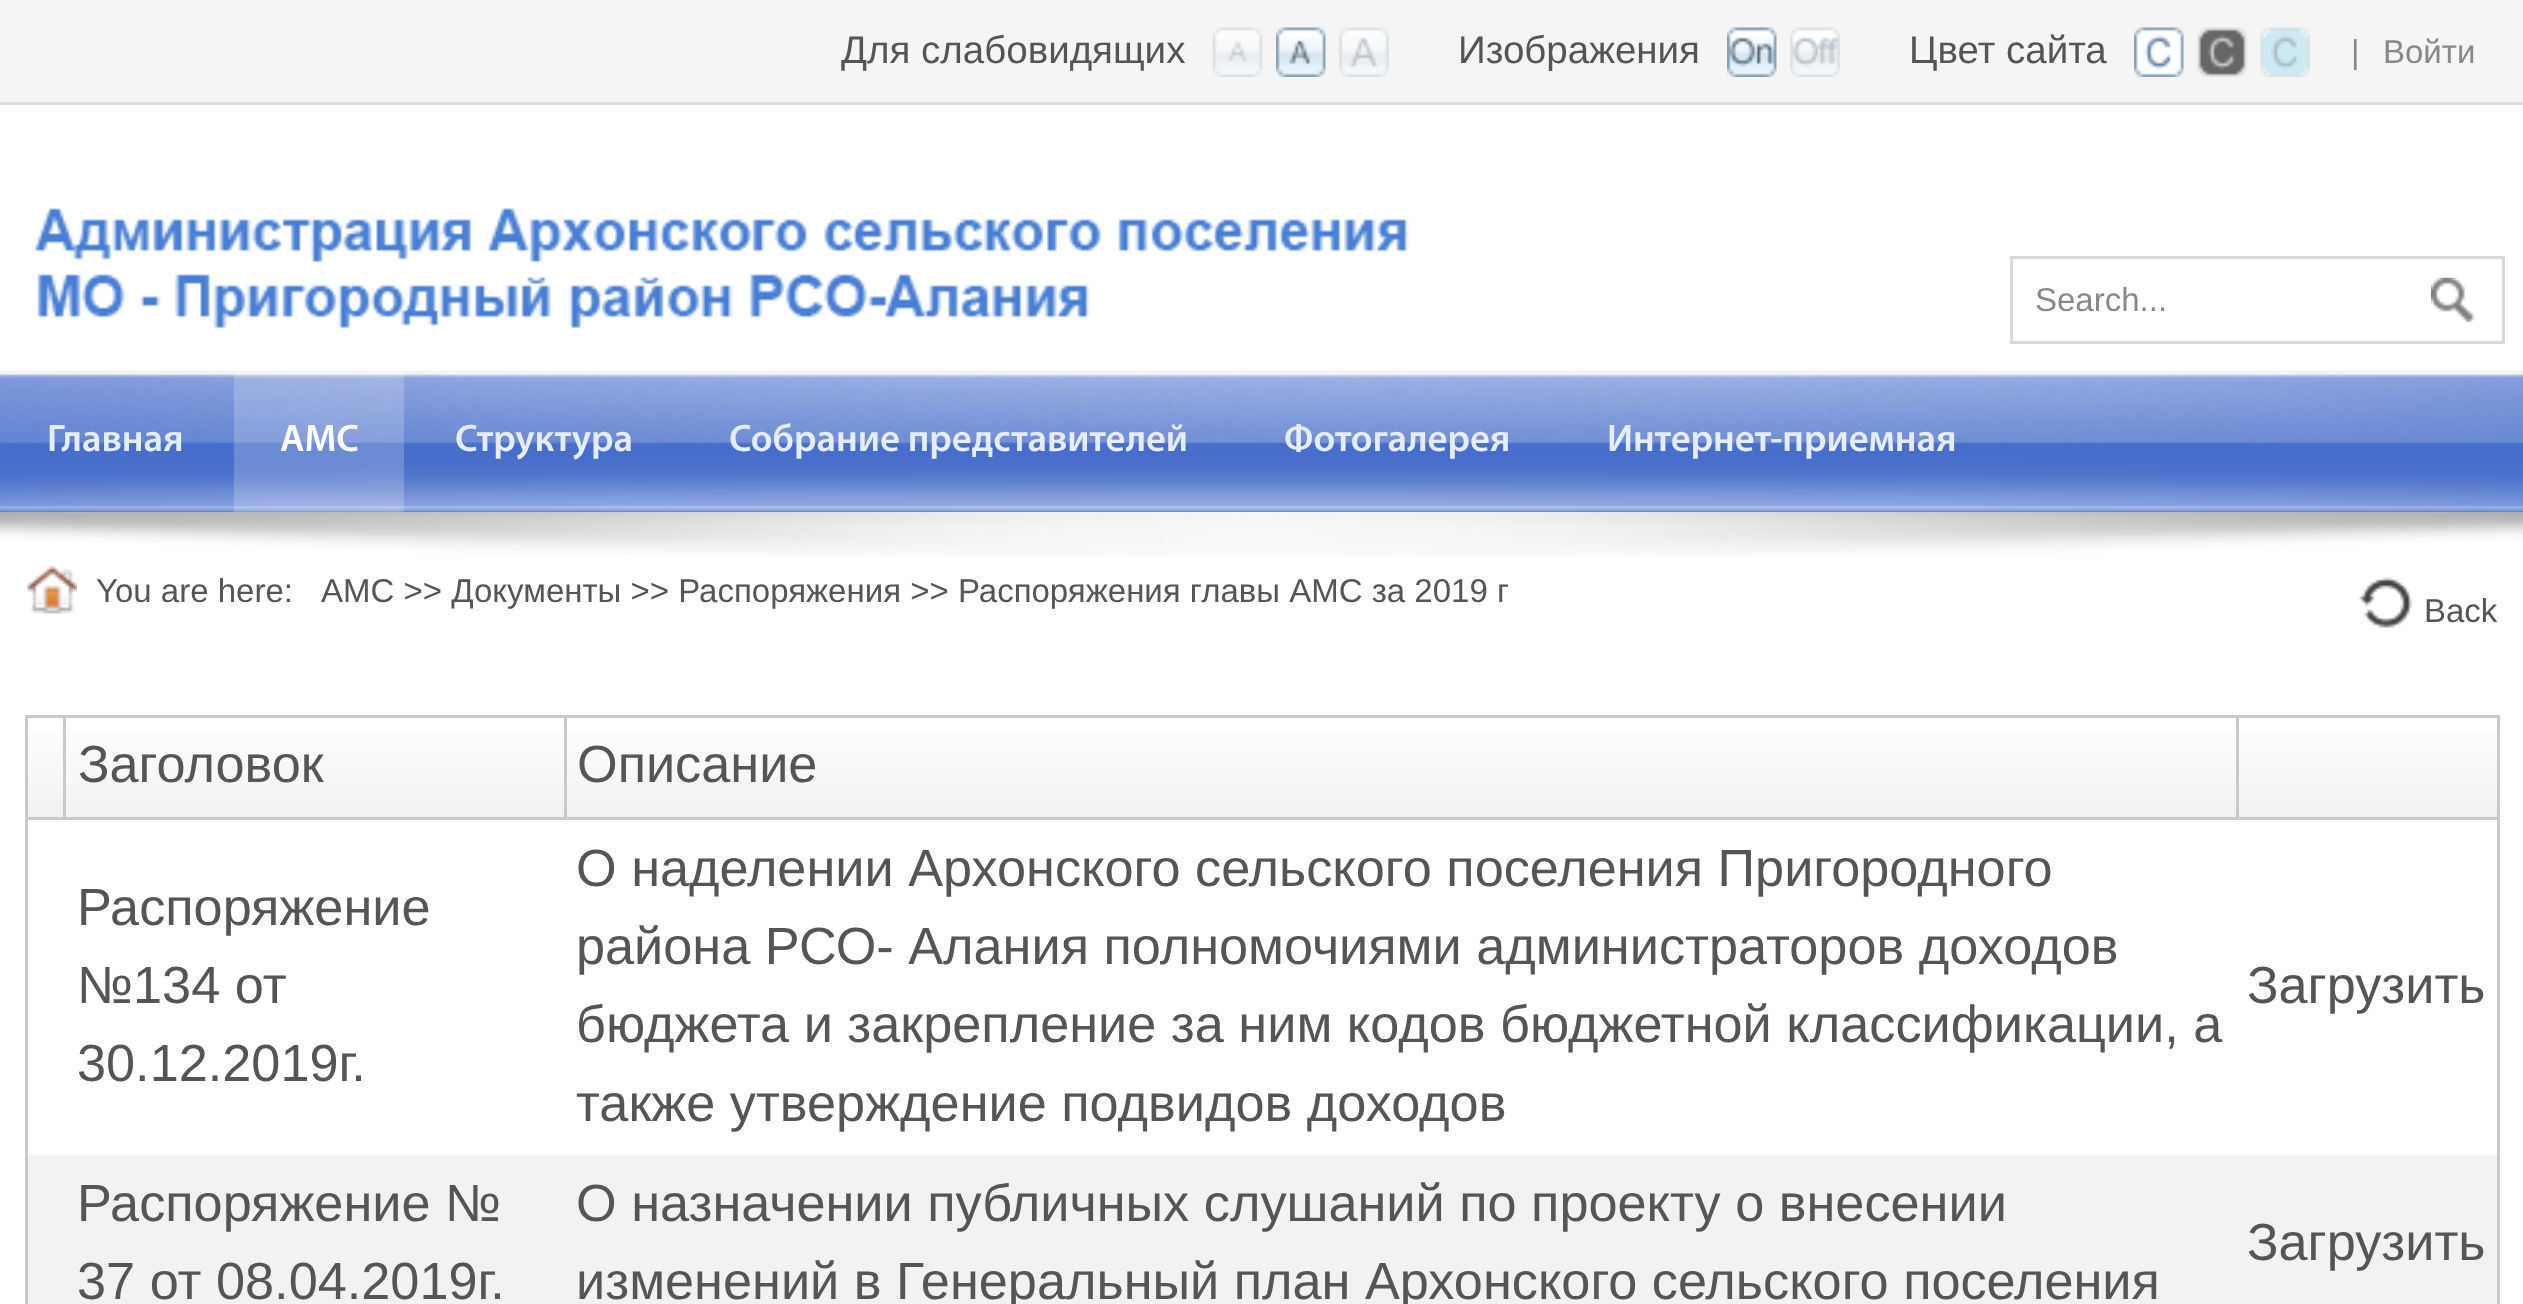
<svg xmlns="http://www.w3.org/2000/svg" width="2523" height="1304">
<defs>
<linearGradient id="g1" gradientUnits="userSpaceOnUse" x1="45" y1="715" x2="45" y2="817"><stop offset="0" stop-color="#fff"/><stop offset="1" stop-color="#f0f2f1"/></linearGradient>
<linearGradient id="g2" gradientUnits="userSpaceOnUse" x1="314" y1="715" x2="314" y2="817"><stop offset="0" stop-color="#fff"/><stop offset="1" stop-color="#f0f2f1"/></linearGradient>
<linearGradient id="g3" gradientUnits="userSpaceOnUse" x1="1398" y1="715" x2="1398" y2="817"><stop offset="0" stop-color="#fff"/><stop offset="1" stop-color="#f0f2f1"/></linearGradient>
<linearGradient id="g4" gradientUnits="userSpaceOnUse" x1="2365" y1="715" x2="2365" y2="817"><stop offset="0" stop-color="#fff"/><stop offset="1" stop-color="#f0f2f1"/></linearGradient>
</defs>
<rect width="100%" height="100%" fill="#fff"/>
<rect width="2523" height="102" fill="#f5f5f5"/>
<rect y="102" width="2523" height="3" fill="#ddd"/>
<text x="841" y="63" style="font-family:Liberation Sans;font-size:38.5px;fill:#555">Для слабовидящих</text>
<image x="1212" y="27" width="51" height="50" href="media/1.png"/>
<image x="1276" y="27" width="50" height="50" href="media/2.png"/>
<image x="1339" y="27" width="50" height="50" href="media/3.png"/>
<text x="1458" y="63" style="font-family:Liberation Sans;font-size:38.5px;fill:#555">Изображения</text>
<image x="1727" y="27" width="50" height="50" href="media/4.png"/>
<image x="1790" y="27" width="50" height="50" href="media/5.png"/>
<text x="1909" y="63" style="font-family:Liberation Sans;font-size:38.5px;fill:#555">Цвет сайта</text>
<image x="2134" y="27" width="50" height="50" href="media/6.png"/>
<image x="2197" y="27" width="50" height="50" href="media/7.png"/>
<image x="2260" y="27" width="50" height="50" href="media/8.png"/>
<text x="2351" y="63" style="font-family:Liberation Sans;font-size:33px;fill:#888">|</text>
<text x="2383" y="63" style="font-family:Liberation Sans;font-size:33px;fill:#888">Войти</text>
<image x="35" y="208" width="1374" height="121" href="media/9.png"/>
<rect x="2011.5" y="257.5" width="492" height="85" fill="none" stroke="#d9d9d9" stroke-width="3"/>
<text x="2035" y="311" style="font-family:Liberation Sans;font-size:33px;fill:#888">Search...</text>
<image x="2431" y="277" width="44" height="45" href="media/10.png"/>
<rect y="371" width="2523" height="141" fill="#476eca"/>
<image x="0" y="371" width="2523" height="141" href="media/11.png"/>
<text x="47" y="451" style="font-family:Myriad;font-size:38.5px;font-weight:600;fill:#e6ecf8">Главная</text>
<rect x="234" y="371" width="170" height="141" fill="#ffffff33"/>
<text x="280" y="451" style="font-family:Myriad;font-size:38.5px;font-weight:600;fill:#fff">АМС</text>
<text x="455" y="451" style="font-family:Myriad;font-size:38.5px;font-weight:600;fill:#e6ecf8">Структура</text>
<text x="729" y="451" style="font-family:Myriad;font-size:38.5px;font-weight:600;fill:#e6ecf8">Собрание представителей</text>
<text x="1284" y="451" style="font-family:Myriad;font-size:38.5px;font-weight:600;fill:#e6ecf8">Фотогалерея</text>
<text x="1607" y="451" style="font-family:Myriad;font-size:38.5px;font-weight:600;fill:#e6ecf8">Интернет-приемная</text>
<image x="0" y="512" width="2523" height="44" href="media/12.png"/>
<image x="27" y="566" width="50" height="48" href="media/13.png"/>
<text x="96" y="602" style="font-family:Liberation Sans;font-size:33px;fill:#555">You are here:</text>
<text x="321" y="602" style="font-family:Liberation Sans;font-size:33px;fill:#555">АМС &gt;&gt; Документы &gt;&gt; Распоряжения &gt;&gt; Распоряжения главы АМС за 2019 г</text>
<image x="2359" y="577" width="53" height="51" href="media/14.png"/>
<text x="2424" y="622" style="font-family:Liberation Sans;font-size:33px;fill:#555">Back</text>
<rect x="25" y="715" width="2475" height="3" fill="#c9c9c9"/>
<rect x="2497" y="715" width="3" height="589" fill="#c9c9c9"/>
<rect x="25" y="715" width="3" height="589" fill="#c9c9c9"/>
<rect x="28" y="732" width="35" height="85" fill="url(#g1)"/>
<rect x="2236" y="817" width="264" height="3" fill="#c9c9c9"/>
<rect x="2236" y="715" width="3" height="105" fill="#c9c9c9"/>
<rect x="564" y="817" width="1675" height="3" fill="#c9c9c9"/>
<rect x="564" y="715" width="3" height="105" fill="#c9c9c9"/>
<rect x="63" y="817" width="504" height="3" fill="#c9c9c9"/>
<rect x="63" y="715" width="3" height="105" fill="#c9c9c9"/>
<rect x="25" y="817" width="41" height="3" fill="#c9c9c9"/>
<rect x="66" y="732" width="498" height="85" fill="url(#g2)"/>
<text x="78" y="782" style="font-family:Liberation Sans;font-size:52.25px;fill:#555">Заголовок</text>
<rect x="567" y="732" width="1669" height="85" fill="url(#g3)"/>
<text x="577" y="782" style="font-family:Liberation Sans;font-size:52.25px;fill:#555">Описание</text>
<rect x="2239" y="732" width="258" height="85" fill="url(#g4)"/>
<text x="77" y="925" style="font-family:Liberation Sans;font-size:52.25px;fill:#555">Распоряжение</text>
<text x="77" y="1003" style="font-family:Liberation Sans;font-size:52.25px;fill:#555">№134 от</text>
<text x="77" y="1081" style="font-family:Liberation Sans;font-size:52.25px;fill:#555">30.12.2019г.</text>
<text x="576" y="886" style="font-family:Liberation Sans;font-size:52.25px;fill:#555">О наделении Архонского сельского поселения Пригородного</text>
<text x="576" y="964" style="font-family:Liberation Sans;font-size:52.25px;fill:#555">района РСО- Алания полномочиями администраторов доходов</text>
<text x="576" y="1042" style="font-family:Liberation Sans;font-size:52.25px;fill:#555">бюджета и закрепление за ним кодов бюджетной классификации, а</text>
<text x="576" y="1121" style="font-family:Liberation Sans;font-size:52.25px;fill:#555">также утверждение подвидов доходов</text>
<text x="2247" y="1003" style="font-family:Liberation Sans;font-size:52.25px;fill:#555">Загрузить</text>
<rect x="28" y="1155" width="2469" height="149" fill="#f2f2f2"/>
<text x="77" y="1221" style="font-family:Liberation Sans;font-size:52.25px;fill:#555">Распоряжение №</text>
<text x="77" y="1299" style="font-family:Liberation Sans;font-size:52.25px;fill:#555">37 от 08.04.2019г.</text>
<text x="576" y="1221" style="font-family:Liberation Sans;font-size:52.25px;fill:#555">О назначении публичных слушаний по проекту о внесении</text>
<text x="576" y="1299" style="font-family:Liberation Sans;font-size:52.25px;fill:#555">изменений в Генеральный план Архонского сельского поселения</text>
<text x="2247" y="1260" style="font-family:Liberation Sans;font-size:52.25px;fill:#555">Загрузить</text>
</svg>
